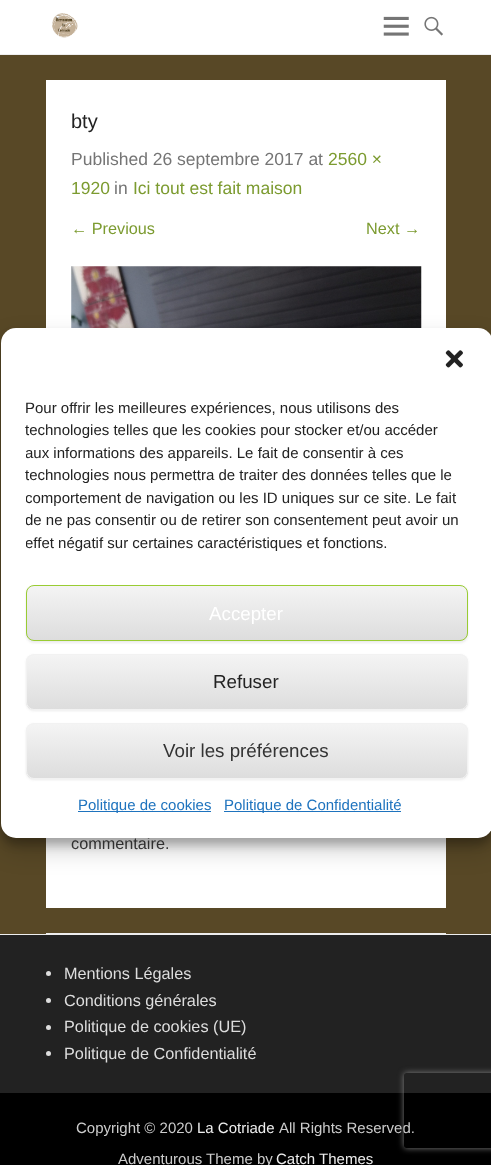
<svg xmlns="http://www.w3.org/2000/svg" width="491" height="1165">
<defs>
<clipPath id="clip1"><rect x="26" y="396" width="442" height="164"/></clipPath>
<clipPath id="clip2"><rect x="26" y="585" width="442" height="56" rx="8"/></clipPath>
<linearGradient id="g1" gradientUnits="userSpaceOnUse" x1="246" y1="586" x2="246" y2="640"><stop offset="0" stop-color="#f4f4f4"/><stop offset="1" stop-color="#ddd"/></linearGradient>
<clipPath id="clip3"><rect x="26" y="654" width="442" height="56" rx="8"/></clipPath>
<linearGradient id="g2" gradientUnits="userSpaceOnUse" x1="246" y1="655" x2="246" y2="709"><stop offset="0" stop-color="#f4f4f4"/><stop offset="1" stop-color="#ddd"/></linearGradient>
<clipPath id="clip4"><rect x="26" y="723" width="442" height="56" rx="8"/></clipPath>
<linearGradient id="g3" gradientUnits="userSpaceOnUse" x1="246" y1="724" x2="246" y2="778"><stop offset="0" stop-color="#f4f4f4"/><stop offset="1" stop-color="#ddd"/></linearGradient>
<clipPath id="clip5"><path d="M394 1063h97v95h-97zm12.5 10h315c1.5 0 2.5 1 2.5 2.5v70c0 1.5-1 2.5-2.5 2.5h-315c-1.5 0-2.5-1-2.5-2.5v-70c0-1.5 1-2.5 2.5-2.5z" clip-rule="evenodd"/></clipPath>
</defs>
<rect width="100%" height="100%" fill="#584826"/>
<rect width="491" height="54" fill="#fff"/>
<rect y="54" width="491" height="1" fill="#eee"/>
<image x="52" y="13" width="26" height="25" href="media/1.png"/>
<image x="383" y="16" width="26" height="20" href="media/2.png"/>
<image x="424" y="16" width="19" height="20" href="media/3.png"/>
<rect x="46" y="933" width="400" height="1" fill="#eee"/>
<rect x="46" y="80" width="400" height="248" fill="#fff"/>
<text x="71" y="128" style="font-family:Liberation Sans;font-size:20px;fill:#222">bty</text>
<text x="71" y="165" style="font-family:Liberation Sans;font-size:17.5px;fill:#757575">Published 26 septembre 2017 at</text>
<text x="328" y="165" style="font-family:Liberation Sans;font-size:17.5px;fill:#7c9b30">2560 ×</text>
<text x="71" y="194" style="font-family:Liberation Sans;font-size:17.5px;fill:#7c9b30">1920</text>
<text x="114" y="194" style="font-family:Liberation Sans;font-size:17.5px;fill:#757575">in</text>
<text x="133" y="194" style="font-family:Liberation Sans;font-size:17.5px;fill:#7c9b30">Ici tout est fait maison</text>
<text x="71" y="234" style="font-family:Liberation Sans;font-size:16.25px;fill:#7c9b30">← Previous</text>
<text x="366" y="234" style="font-family:Liberation Sans;font-size:16.25px;fill:#7c9b30">Next →</text>
<image x="71" y="266" width="351" height="62" href="media/4.png"/>
<rect x="46" y="838" width="400" height="70" fill="#fff"/>
<text x="71" y="849" style="font-family:Liberation Sans;font-size:16.25px;fill:#404040">commentaire.</text>
<rect y="934" width="491" height="1" fill="#eee"/>
<rect y="935" width="491" height="158" fill="#222"/>
<circle cx="48.5" cy="973.5" r="2.5" fill="#ddd"/>
<text x="64" y="979" style="font-family:Liberation Sans;font-size:16.25px;fill:#ddd">Mentions Légales</text>
<circle cx="48.5" cy="1000.5" r="2.5" fill="#ddd"/>
<text x="64" y="1006" style="font-family:Liberation Sans;font-size:16.25px;fill:#ddd">Conditions générales</text>
<circle cx="48.5" cy="1027.5" r="2.5" fill="#ddd"/>
<text x="64" y="1032" style="font-family:Liberation Sans;font-size:16.25px;fill:#ddd">Politique de cookies (UE)</text>
<circle cx="48.5" cy="1053.5" r="2.5" fill="#ddd"/>
<text x="64" y="1059" style="font-family:Liberation Sans;font-size:16.25px;fill:#ddd">Politique de Confidentialité</text>
<rect y="1093" width="491" height="72" fill="#000"/>
<text x="76" y="1133" style="font-family:Liberation Sans;font-size:15px;fill:#ccc">Copyright © 2020</text>
<text x="197" y="1133" style="font-family:Liberation Sans;font-size:15px;fill:#eee">La Cotriade</text>
<text x="279" y="1133" style="font-family:Liberation Sans;font-size:15px;fill:#ccc">All Rights Reserved.</text>
<text x="118" y="1164" style="font-family:Liberation Sans;font-size:15px;fill:#ccc">Adventurous Theme by</text>
<text x="276" y="1164" style="font-family:Liberation Sans;font-size:15px;fill:#eee">Catch Themes</text>
<rect x="1" y="335" width="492" height="510" rx="15" fill="#0000003b" filter="blur(4px)"/>
<rect x="1" y="340" width="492" height="510" rx="15" fill="#00000030" filter="blur(12.5px)"/>
<rect x="1" y="328" width="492" height="510" rx="15" fill="#fff"/>
<image x="445" y="350" width="18" height="18" href="media/5.png"/>
<text x="25" y="413" style="font-family:Liberation Sans;font-size:15px;fill:#222">Pour offrir les meilleures expériences, nous utilisons des</text>
<text x="25" y="435" style="font-family:Liberation Sans;font-size:15px;fill:#222">technologies telles que les cookies pour stocker et/ou accéder</text>
<g clip-path="url(#clip1)">
<text x="25" y="458" style="font-family:Liberation Sans;font-size:15px;fill:#222">aux informations des appareils. Le fait de consentir à ces</text>
</g>
<text x="25" y="480" style="font-family:Liberation Sans;font-size:15px;fill:#222">technologies nous permettra de traiter des données telles que le</text>
<g clip-path="url(#clip1)">
<text x="25" y="503" style="font-family:Liberation Sans;font-size:15px;fill:#222">comportement de navigation ou les ID uniques sur ce site. Le fait</text>
<text x="25" y="525" style="font-family:Liberation Sans;font-size:15px;fill:#222">de ne pas consentir ou de retirer son consentement peut avoir un</text>
<text x="25" y="548" style="font-family:Liberation Sans;font-size:15px;fill:#222">effet négatif sur certaines caractéristiques et fonctions.</text>
</g>
<rect x="26" y="586" width="442" height="57" rx="8" fill="#4040401a" filter="blur(1px)"/>
<g clip-path="url(#clip2)">
<rect x="26" y="586" width="442" height="54" fill="url(#g1)"/>
</g>
<rect x="26.5" y="585.5" width="441" height="55" rx="7.5" fill="none" stroke="#9c3"/>
<text x="209" y="620" style="font-family:Liberation Sans;font-size:18.75px;fill:#fff">Accepter</text>
<rect x="26" y="655" width="442" height="56" rx="8" fill="#4040401a" filter="blur(1px)"/>
<g clip-path="url(#clip3)">
<rect x="26" y="655" width="442" height="54" fill="url(#g2)"/>
</g>
<rect x="26.5" y="654.5" width="441" height="55" rx="7.5" fill="none" stroke="#f2f2f2"/>
<text x="213" y="688" style="font-family:Liberation Sans;font-size:18.75px;fill:#222">Refuser</text>
<rect x="26" y="724" width="442" height="56" rx="8" fill="#4040401a" filter="blur(1px)"/>
<g clip-path="url(#clip4)">
<rect x="26" y="724" width="442" height="54" fill="url(#g3)"/>
</g>
<rect x="26.5" y="723.5" width="441" height="55" rx="7.5" fill="none" stroke="#f2f2f2"/>
<text x="163" y="757" style="font-family:Liberation Sans;font-size:18.75px;fill:#333">Voir les préférences</text>
<rect x="78" y="811" width="133" height="1" fill="#1e73be"/>
<text x="78" y="810" style="font-family:Liberation Sans;font-size:15px;fill:#1e73be">Politique de cookies</text>
<rect x="224" y="811" width="177" height="1" fill="#1e73be"/>
<text x="224" y="810" style="font-family:Liberation Sans;font-size:15px;fill:#1e73be">Politique de Confidentialité</text>
<g clip-path="url(#clip5)">
<rect x="404" y="1073" width="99" height="75" rx="2.5" fill="#808080" filter="blur(3px)"/>
</g>
</svg>
